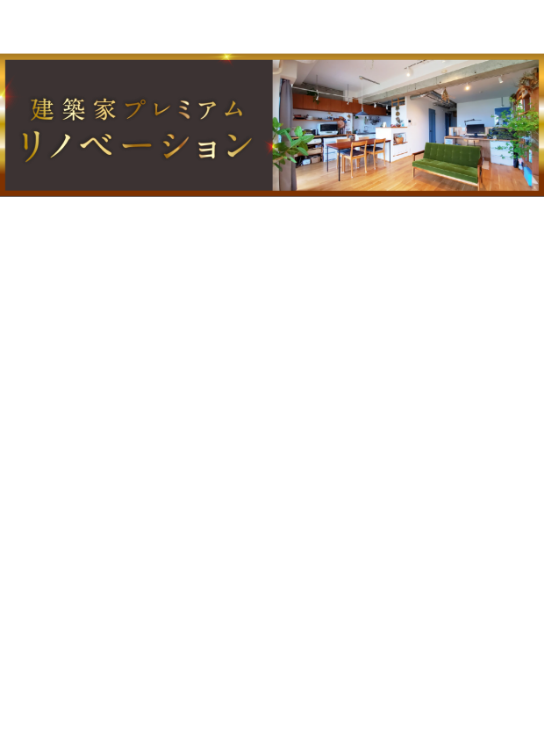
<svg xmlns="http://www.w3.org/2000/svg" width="544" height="735">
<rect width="100%" height="100%" fill="#fff"/>
<image x="0" y="53" width="544" height="144" href="media/1.png"/>
</svg>
